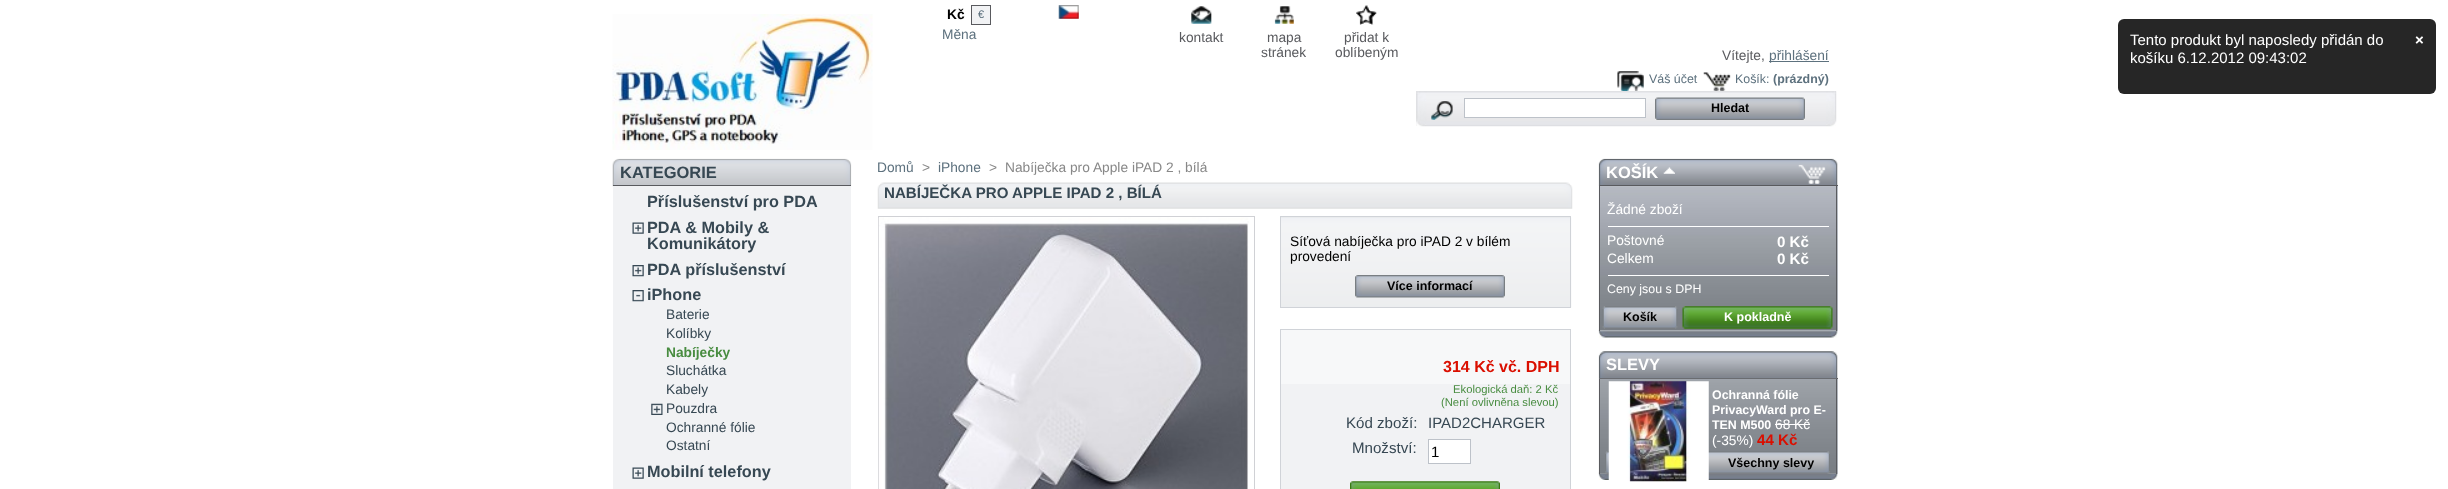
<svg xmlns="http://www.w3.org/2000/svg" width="2448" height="489">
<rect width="100%" height="100%" fill="#fff"/>
<image x="612" y="14" width="261" height="136" href="media/1.png"/>
<text x="947" y="19" style="font-family:Liberation Sans;font-size:13.75px;font-weight:bold;fill:#000">Kč</text>
<rect x="971.5" y="5.5" width="19" height="19" fill="#f1f2f4" stroke="#595a5e"/>
<text x="978" y="18" style="font-family:Liberation Sans;font-size:11px;fill:#5d717e">€</text>
<text x="942" y="39" style="font-family:Liberation Sans;font-size:13.75px;fill:#5d717e">Měna</text>
<image x="1058" y="5" width="21" height="14" href="media/2.png"/>
<image x="1191" y="6" width="21" height="18" href="media/3.png"/>
<text x="1179" y="42" style="font-family:Liberation Sans;font-size:13.75px;fill:#595a5e">kontakt</text>
<image x="1274" y="6" width="20" height="18" href="media/4.png"/>
<text x="1267" y="42" style="font-family:Liberation Sans;font-size:13.75px;fill:#595a5e">mapa</text>
<text x="1261" y="57" style="font-family:Liberation Sans;font-size:13.75px;fill:#595a5e">stránek</text>
<image x="1356" y="5" width="21" height="20" href="media/5.png"/>
<text x="1344" y="42" style="font-family:Liberation Sans;font-size:13.75px;fill:#595a5e">přidat k</text>
<text x="1335" y="57" style="font-family:Liberation Sans;font-size:13.75px;fill:#595a5e">oblíbeným</text>
<text x="1722" y="60" style="font-family:Liberation Sans;font-size:13.75px;fill:#595a5e">Vítejte,</text>
<rect x="1769" y="61" width="60" height="1" fill="#5d717e"/>
<text x="1769" y="60" style="font-family:Liberation Sans;font-size:13.75px;fill:#5d717e">přihlášení</text>
<image x="1617" y="71" width="27" height="20" href="media/6.png"/>
<text x="1649" y="83" style="font-family:Liberation Sans;font-size:12.4px;fill:#5d717e">Váš účet</text>
<image x="1703" y="72" width="28" height="19" href="media/7.png"/>
<text x="1735" y="83" style="font-family:Liberation Sans;font-size:12.4px;fill:#5d717e">Košík:</text>
<text x="1773" y="83" style="font-family:Liberation Sans;font-size:12.4px;font-weight:bold;fill:#5d717e">(prázdný)</text>
<rect x="1416" y="91" width="420" height="35" fill="#e5e6e7"/>
<image x="1416" y="91" width="421" height="36" href="media/8.png"/>
<image x="1431" y="101" width="22" height="19" href="media/9.png"/>
<rect x="1464.5" y="98.5" width="181" height="19" fill="#fff" stroke="#bdc2c9"/>
<rect x="1655" y="98" width="150" height="22" fill="#efefef"/>
<image x="1655" y="97" width="150" height="23" href="media/10.png"/>
<text x="1711" y="112" style="font-family:Liberation Sans;font-size:12.5px;font-weight:bold;fill:#000">Hledat</text>
<image x="612" y="158" width="240" height="29" href="media/11.png"/>
<rect x="613" y="185" width="238" height="1" fill="#595a5e"/>
<text x="620" y="178" style="font-family:Liberation Sans;font-size:16.5px;font-weight:bold;fill:#374853">KATEGORIE</text>
<rect x="613" y="186" width="238" height="303" fill="#f1f2f4"/>
<text x="647" y="207" style="font-family:Liberation Sans;font-size:16.25px;font-weight:bold;fill:#374853">Příslušenství pro PDA</text>
<image x="632" y="222" width="12" height="12" href="media/12.png"/>
<text x="647" y="233" style="font-family:Liberation Sans;font-size:16.25px;font-weight:bold;fill:#374853">PDA &amp; Mobily &amp;</text>
<text x="647" y="249" style="font-family:Liberation Sans;font-size:16.25px;font-weight:bold;fill:#374853">Komunikátory</text>
<image x="632" y="265" width="12" height="12" href="media/13.png"/>
<text x="647" y="275" style="font-family:Liberation Sans;font-size:16.25px;font-weight:bold;fill:#374853">PDA příslušenství</text>
<image x="632" y="290" width="12" height="12" href="media/14.png"/>
<text x="647" y="300" style="font-family:Liberation Sans;font-size:16.25px;font-weight:bold;fill:#374853">iPhone</text>
<text x="666" y="319" style="font-family:Liberation Sans;font-size:13.75px;fill:#374853">Baterie</text>
<text x="666" y="338" style="font-family:Liberation Sans;font-size:13.75px;fill:#374853">Kolíbky</text>
<text x="666" y="357" style="font-family:Liberation Sans;font-size:13.75px;font-weight:bold;fill:#488c40">Nabíječky</text>
<text x="666" y="375" style="font-family:Liberation Sans;font-size:13.75px;fill:#374853">Sluchátka</text>
<text x="666" y="394" style="font-family:Liberation Sans;font-size:13.75px;fill:#374853">Kabely</text>
<image x="651" y="403" width="12" height="12" href="media/15.png"/>
<text x="666" y="413" style="font-family:Liberation Sans;font-size:13.75px;fill:#374853">Pouzdra</text>
<text x="666" y="432" style="font-family:Liberation Sans;font-size:13.75px;fill:#374853">Ochranné fólie</text>
<text x="666" y="450" style="font-family:Liberation Sans;font-size:13.75px;fill:#374853">Ostatní</text>
<image x="632" y="467" width="12" height="12" href="media/12.png"/>
<text x="647" y="477" style="font-family:Liberation Sans;font-size:16.25px;font-weight:bold;fill:#374853">Mobilní telefony</text>
<text x="877" y="172" style="font-family:Liberation Sans;font-size:13.75px;fill:#5d717e">Domů</text>
<text x="922" y="172" style="font-family:Liberation Sans;font-size:13.75px;fill:#888">&gt;</text>
<text x="938" y="172" style="font-family:Liberation Sans;font-size:13.75px;fill:#5d717e">iPhone</text>
<text x="989" y="172" style="font-family:Liberation Sans;font-size:13.75px;fill:#888">&gt;</text>
<text x="1005" y="172" style="font-family:Liberation Sans;font-size:13.75px;fill:#888">Nabíječka pro Apple iPAD 2 , bílá</text>
<image x="877" y="182" width="696" height="27" href="media/16.png"/>
<text x="884" y="198" style="font-family:Liberation Sans;font-size:15.1px;font-weight:bold;fill:#374853">NABÍJEČKA PRO APPLE IPAD 2 , BÍLÁ</text>
<rect x="878.5" y="216.5" width="376" height="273" fill="none" stroke="#d0d1d5"/>
<image x="878" y="217" width="371" height="272" href="media/17.png"/>
<rect x="1281" y="217" width="289" height="1" fill="#e5e6e7"/>
<image x="1281" y="217" width="291" height="91" href="media/18.png"/>
<rect x="1280.5" y="216.5" width="290" height="91" fill="none" stroke="#d0d3d8"/>
<text x="1290" y="246" style="font-family:Liberation Sans;font-size:13.75px;fill:#000">Síťová nabíječka pro iPAD 2 v bílém</text>
<text x="1290" y="261" style="font-family:Liberation Sans;font-size:13.75px;fill:#000">provedení</text>
<image x="1355" y="275" width="150" height="23" href="media/19.png"/>
<text x="1387" y="290" style="font-family:Liberation Sans;font-size:12.5px;font-weight:bold;fill:#000">Více informací</text>
<rect x="1281" y="384" width="289" height="105" fill="#f1f2f4"/>
<rect x="1281" y="330" width="289" height="54" fill="#f7f8f9"/>
<rect x="1280.5" y="329.5" width="290" height="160" fill="none" stroke="#d0d3d8"/>
<text x="1443" y="372" style="font-family:Liberation Sans;font-size:16px;font-weight:bold;fill:#da0f00">314 Kč vč. DPH</text>
<text x="1453" y="393" style="font-family:Liberation Sans;font-size:11.25px;fill:#488c40">Ekologická daň: 2 Kč</text>
<text x="1441" y="406" style="font-family:Liberation Sans;font-size:11.25px;fill:#488c40">(Není ovlivněna slevou)</text>
<text x="1346" y="428" style="font-family:Liberation Sans;font-size:15.1px;fill:#374853">Kód zboží:</text>
<text x="1428" y="428" style="font-family:Liberation Sans;font-size:15px;fill:#374853">IPAD2CHARGER</text>
<text x="1352" y="453" style="font-family:Liberation Sans;font-size:15.1px;fill:#374853">Množství:</text>
<rect x="1428.5" y="439.5" width="42" height="24" fill="#fff" stroke="#bdc2c9"/>
<text x="1431" y="457" style="font-family:Liberation Sans;font-size:15px;fill:#000">1</text>
<rect x="1350" y="481" width="150" height="2" fill="#efefef"/>
<image x="1350" y="481" width="150" height="8" href="media/20.png"/>
<image x="1598" y="330" width="240" height="8" href="media/21.png"/>
<image x="1598" y="158" width="240" height="28" href="media/22.png"/>
<rect x="1599" y="185" width="239" height="1" fill="#595a5e"/>
<text x="1606" y="178" style="font-family:Liberation Sans;font-size:16.5px;font-weight:bold;fill:#fff">KOŠÍK</text>
<image x="1663" y="167" width="12" height="7" href="media/23.png"/>
<rect x="1600" y="186" width="238" height="145" fill="#bdc2c9"/>
<image x="1598" y="186" width="240" height="146" href="media/24.png"/>
<rect x="1836" y="186" width="1" height="145" fill="#595a5e"/>
<rect x="1599" y="186" width="1" height="145" fill="#595a5e"/>
<text x="1607" y="214" style="font-family:Liberation Sans;font-size:13.75px;fill:#fff">Žádné zboží</text>
<rect x="1608" y="226" width="221" height="1" fill="#fff"/>
<text x="1607" y="245" style="font-family:Liberation Sans;font-size:13.75px;fill:#fff">Poštovné</text>
<text x="1777" y="247" style="font-family:Liberation Sans;font-size:15.1px;font-weight:bold;fill:#fff">0 Kč</text>
<text x="1607" y="263" style="font-family:Liberation Sans;font-size:13.75px;fill:#fff">Celkem</text>
<text x="1777" y="264" style="font-family:Liberation Sans;font-size:15.1px;font-weight:bold;fill:#fff">0 Kč</text>
<rect x="1608" y="275" width="221" height="1" fill="#fff"/>
<text x="1607" y="293" style="font-family:Liberation Sans;font-size:12.4px;fill:#fff">Ceny jsou s DPH</text>
<image x="1602" y="306" width="76" height="23" href="media/25.png"/>
<text x="1623" y="321" style="font-family:Liberation Sans;font-size:12.5px;font-weight:bold;fill:#000">Košík</text>
<image x="1682" y="306" width="151" height="23" href="media/26.png"/>
<text x="1724" y="321" style="font-family:Liberation Sans;font-size:12.5px;font-weight:bold;fill:#fff">K pokladně</text>
<image x="1598" y="472" width="240" height="8" href="media/27.png"/>
<image x="1598" y="351" width="240" height="28" href="media/28.png"/>
<rect x="1599" y="378" width="239" height="1" fill="#595a5e"/>
<text x="1606" y="370" style="font-family:Liberation Sans;font-size:16.5px;font-weight:bold;fill:#fff">SLEVY</text>
<rect x="1600" y="379" width="238" height="95" fill="#bdc2c9"/>
<image x="1598" y="378" width="240" height="96" href="media/29.png"/>
<rect x="1836" y="379" width="1" height="95" fill="#595a5e"/>
<rect x="1599" y="379" width="1" height="95" fill="#595a5e"/>
<image x="1605" y="451" width="225" height="23" href="media/31.png"/>
<image x="1608" y="381" width="101" height="101" href="media/30.png"/>
<text x="1712" y="399" style="font-family:Liberation Sans;font-size:12.4px;font-weight:bold;fill:#fff">Ochranná fólie</text>
<text x="1712" y="414" style="font-family:Liberation Sans;font-size:12.4px;font-weight:bold;fill:#fff">PrivacyWard pro E-</text>
<text x="1712" y="429" style="font-family:Liberation Sans;font-size:12.4px;font-weight:bold;fill:#fff">TEN M500</text>
<text x="1775" y="429" style="font-family:Liberation Sans;font-size:13.75px;fill:#fff">68 Kč</text>
<rect x="1775" y="424" width="35" height="1" fill="#fff"/>
<text x="1712" y="445" style="font-family:Liberation Sans;font-size:13.75px;fill:#fff">(-35%)</text>
<text x="1757" y="445" style="font-family:Liberation Sans;font-size:15.1px;font-weight:bold;fill:#da0f00">44 Kč</text>
<text x="1728" y="467" style="font-family:Liberation Sans;font-size:12.5px;font-weight:bold;fill:#000">Všechny slevy</text>
<rect x="2118" y="19" width="318" height="75" rx="6" fill="#262626"/>
<text x="2130" y="45" style="font-family:Liberation Sans;font-size:15px;fill:#fff">Tento produkt byl naposledy přidán do</text>
<text x="2130" y="63" style="font-family:Liberation Sans;font-size:15px;fill:#fff">košíku 6.12.2012 09:43:02</text>
<text x="2415" y="45" style="font-family:Liberation Sans;font-size:15px;font-weight:bold;fill:#fff">×</text>
</svg>
